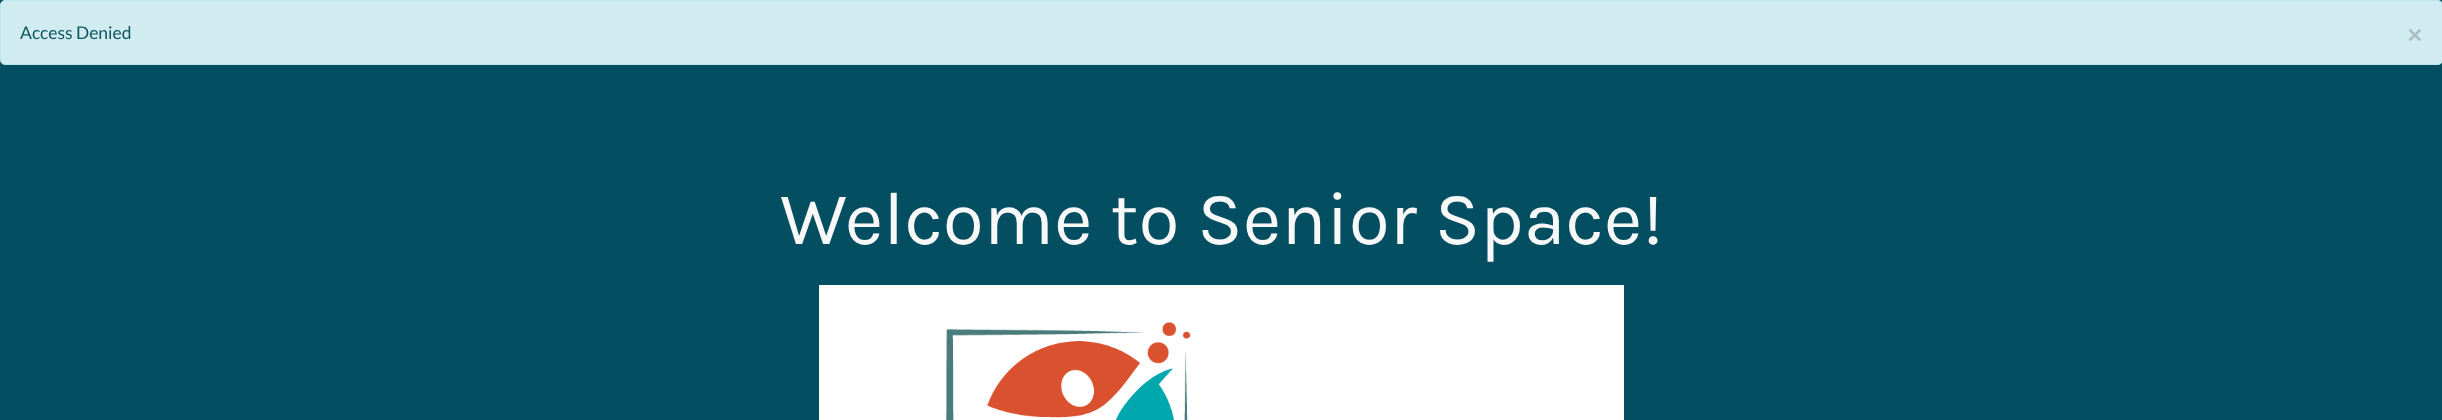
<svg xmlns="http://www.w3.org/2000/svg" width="2442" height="420">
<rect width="100%" height="100%" fill="#044e61"/>
<rect x="0.5" y="0.5" width="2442" height="64" rx="4.5" fill="#d1ecf1" stroke="#bee5eb"/>
<text x="20" y="39" style="font-family:Lato;font-size:17.5px;fill:#0c5460">Access Denied</text>
<text x="2407" y="44" style="font-family:Lato;font-size:26px;font-weight:bold;fill:#a7bdc1">×</text>
<text x="780" y="244" style="font-family:Karla;font-size:75px;fill:#f8f8f8">Welcome to Senior Space!</text>
<rect x="819" y="285" width="805" height="135" fill="#fff"/>
<image x="945" y="322" width="246" height="98" href="media/1.png"/>
</svg>
